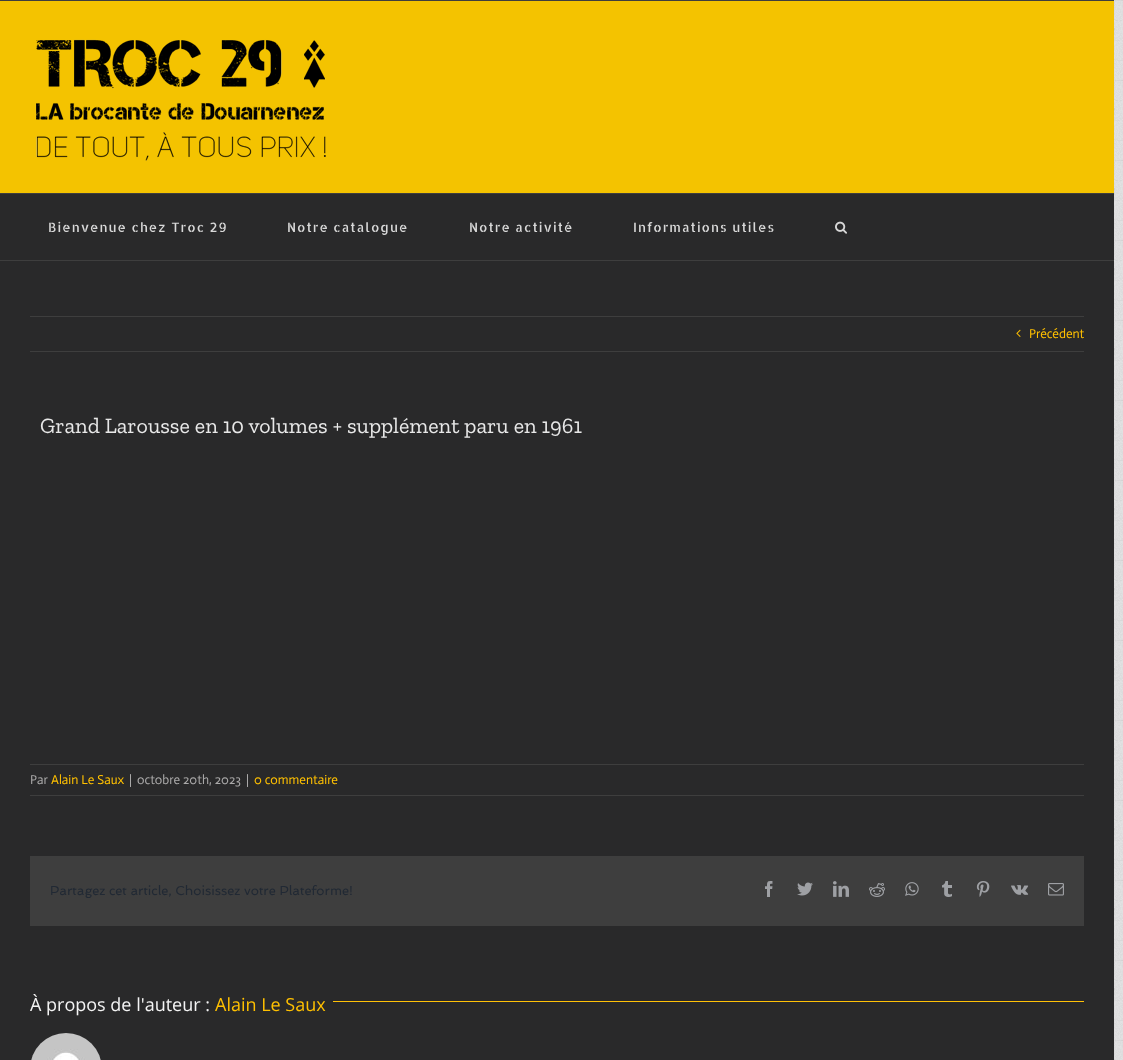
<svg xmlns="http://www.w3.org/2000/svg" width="1123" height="1060">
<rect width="100%" height="100%" fill="#fff"/>
<image x="1114" y="0" width="9" height="1041" href="media/1.png"/>
<image x="1114" y="0" width="9" height="1060" href="media/2.png"/>
<rect y="194" width="1114" height="866" fill="#29292a"/>
<rect width="1114" height="1" fill="#3e3e3e"/>
<rect y="1" width="1114" height="192" fill="#f4c300"/>
<rect y="193" width="1114" height="1" fill="#3e3e3e"/>
<image x="35" y="39" width="291" height="122" href="media/3.png"/>
<rect y="260" width="1114" height="1" fill="#3e3e3e"/>
<text x="48" y="232" style="font-family:Allerta Stencil;font-size:13px;letter-spacing:1px;fill:#d8d8d8">Bienvenue chez Troc 29</text>
<text x="287" y="232" style="font-family:Allerta Stencil;font-size:13px;letter-spacing:1px;fill:#d8d8d8">Notre catalogue</text>
<text x="469" y="232" style="font-family:Allerta Stencil;font-size:13px;letter-spacing:1px;fill:#d8d8d8">Notre activité</text>
<text x="633" y="232" style="font-family:Allerta Stencil;font-size:13px;letter-spacing:1px;fill:#d8d8d8">Informations utiles</text>
<image x="835" y="221" width="12" height="13" href="media/4.png"/>
<rect x="30" y="316" width="1054" height="1" fill="#3e3e3e"/>
<rect x="30" y="351" width="1054" height="1" fill="#3e3e3e"/>
<image x="1016" y="329" width="5" height="8" href="media/5.png"/>
<text x="1029" y="338" style="font-family:Actor;font-size:13px;fill:#ffc000">Précédent</text>
<text x="40" y="433" style="font-family:Zilla Slab;font-size:22px;fill:#e8e8e8">Grand Larousse en 10 volumes + supplément paru en 1961</text>
<rect x="30" y="764" width="1054" height="1" fill="#3e3e3e"/>
<rect x="30" y="795" width="1054" height="1" fill="#3e3e3e"/>
<text x="30" y="784" style="font-family:Actor;font-size:13px;fill:#aaa9a9">Par</text>
<text x="51" y="784" style="font-family:Actor;font-size:13px;fill:#ffc000">Alain Le Saux</text>
<text x="129" y="784" style="font-family:Actor;font-size:13px;fill:#aaa9a9">|</text>
<text x="137" y="784" style="font-family:Actor;font-size:13px;fill:#aaa9a9">octobre 20th, 2023</text>
<text x="246" y="784" style="font-family:Actor;font-size:13px;fill:#aaa9a9">|</text>
<text x="254" y="784" style="font-family:Actor;font-size:13px;fill:#ffc000">0 commentaire</text>
<rect x="30" y="856" width="1054" height="70" fill="#3e3e3e"/>
<text x="50" y="895" style="font-family:Spinnaker;font-size:13px;fill:#212934">Partagez cet article, Choisissez votre Plateforme!</text>
<image x="765" y="881" width="8" height="16" href="media/6.png"/>
<image x="797" y="882" width="16" height="14" href="media/7.png"/>
<image x="833" y="881" width="16" height="16" href="media/8.png"/>
<image x="869" y="883" width="16" height="14" href="media/9.png"/>
<image x="905" y="882" width="14" height="14" href="media/10.png"/>
<image x="942" y="881" width="10" height="16" href="media/11.png"/>
<image x="976" y="881" width="14" height="16" href="media/12.png"/>
<image x="1011" y="885" width="18" height="10" href="media/13.png"/>
<image x="1048" y="883" width="16" height="13" href="media/14.png"/>
<text x="30" y="1011" style="font-family:Open Sans;font-size:18px;fill:#f4f4f4">À propos de l'auteur :</text>
<text x="215" y="1011" style="font-family:Open Sans;font-size:18px;fill:#ffc000">Alain Le Saux</text>
<rect x="333" y="1001" width="751" height="1" fill="#ffc107"/>
<image x="31" y="1033" width="70" height="27" href="media/15.png"/>
</svg>
